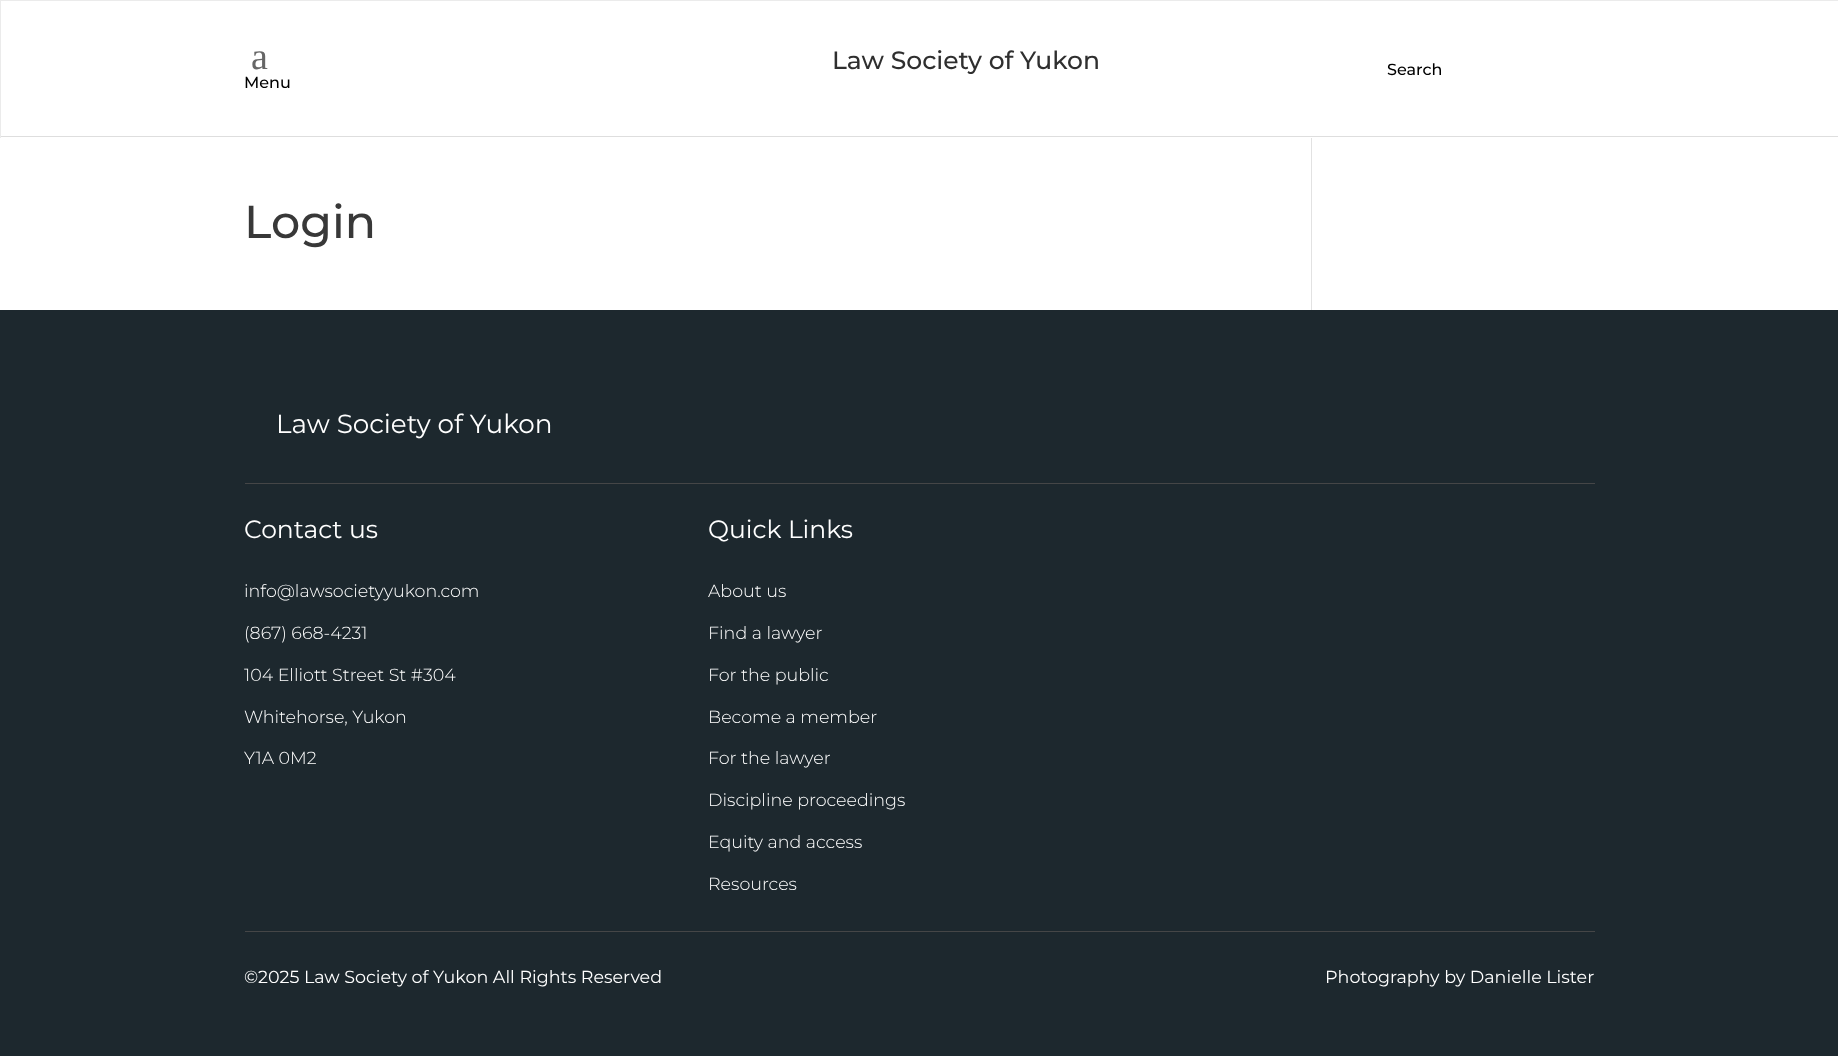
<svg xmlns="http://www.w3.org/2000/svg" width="1838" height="1056">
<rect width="100%" height="100%" fill="#fff"/>
<rect width="1838" height="1" fill="#ebebeb"/>
<rect y="136" width="1838" height="1" fill="#dedede"/>
<rect width="1" height="138" fill="#ebebeb"/>
<text x="251" y="69" style="font-family:Liberation Serif;font-size:38px;fill:#666">a</text>
<text x="244" y="88" style="font-family:Montserrat;font-size:16px;font-weight:100;fill:#000">Menu</text>
<text x="832" y="69" style="font-family:Montserrat;font-size:25px;font-weight:100;fill:#2f2f2f">Law Society of Yukon</text>
<text x="1387" y="75" style="font-family:Montserrat;font-size:16px;font-weight:100;fill:#000">Search</text>
<text x="244" y="238" style="font-family:Montserrat;font-size:46px;font-weight:100;fill:#383838">Login</text>
<rect x="1311" y="138" width="1" height="172" fill="#e2e2e2"/>
<rect y="310" width="1838" height="746" fill="#1d282e"/>
<text x="276" y="433" style="font-family:'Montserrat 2';font-size:26.25px;font-weight:100;fill:#fff">Law Society of Yukon</text>
<rect x="245" y="483" width="1350" height="1" fill="#454647"/>
<rect x="245" y="931" width="1350" height="1" fill="#454647"/>
<text x="244" y="538" style="font-family:'Montserrat 2';font-size:25px;font-weight:100;fill:#fff">Contact us</text>
<text x="244" y="597" style="font-family:'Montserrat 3';font-size:17.5px;font-weight:100;fill:#fff">info@lawsocietyyukon.com</text>
<text x="244" y="639" style="font-family:'Montserrat 3';font-size:17.5px;font-weight:100;fill:#fff">(867) 668-4231</text>
<text x="244" y="681" style="font-family:'Montserrat 3';font-size:17.5px;font-weight:100;fill:#fff">104 Elliott Street St #304</text>
<text x="244" y="723" style="font-family:'Montserrat 3';font-size:17.5px;font-weight:100;fill:#fff">Whitehorse, Yukon</text>
<text x="244" y="764" style="font-family:'Montserrat 3';font-size:17.5px;font-weight:100;fill:#fff">Y1A 0M2</text>
<text x="708" y="538" style="font-family:'Montserrat 2';font-size:25px;font-weight:100;fill:#fff">Quick Links</text>
<text x="708" y="597" style="font-family:'Montserrat 3';font-size:17.5px;font-weight:100;fill:#fff">About us</text>
<text x="708" y="639" style="font-family:'Montserrat 3';font-size:17.5px;font-weight:100;fill:#fff">Find a lawyer</text>
<text x="708" y="681" style="font-family:'Montserrat 3';font-size:17.5px;font-weight:100;fill:#fff">For the public</text>
<text x="708" y="723" style="font-family:'Montserrat 3';font-size:17.5px;font-weight:100;fill:#fff">Become a member</text>
<text x="708" y="764" style="font-family:'Montserrat 3';font-size:17.5px;font-weight:100;fill:#fff">For the lawyer</text>
<text x="708" y="806" style="font-family:'Montserrat 3';font-size:17.5px;font-weight:100;fill:#fff">Discipline proceedings</text>
<text x="708" y="848" style="font-family:'Montserrat 3';font-size:17.5px;font-weight:100;fill:#fff">Equity and access</text>
<text x="708" y="890" style="font-family:'Montserrat 3';font-size:17.5px;font-weight:100;fill:#fff">Resources</text>
<text x="244" y="983" style="font-family:'Montserrat 2';font-size:17.5px;font-weight:100;fill:#fff">©2025 Law Society of Yukon All Rights Reserved</text>
<text x="1325" y="983" style="font-family:'Montserrat 2';font-size:17.5px;font-weight:100;fill:#fff">Photography by Danielle Lister</text>
</svg>
